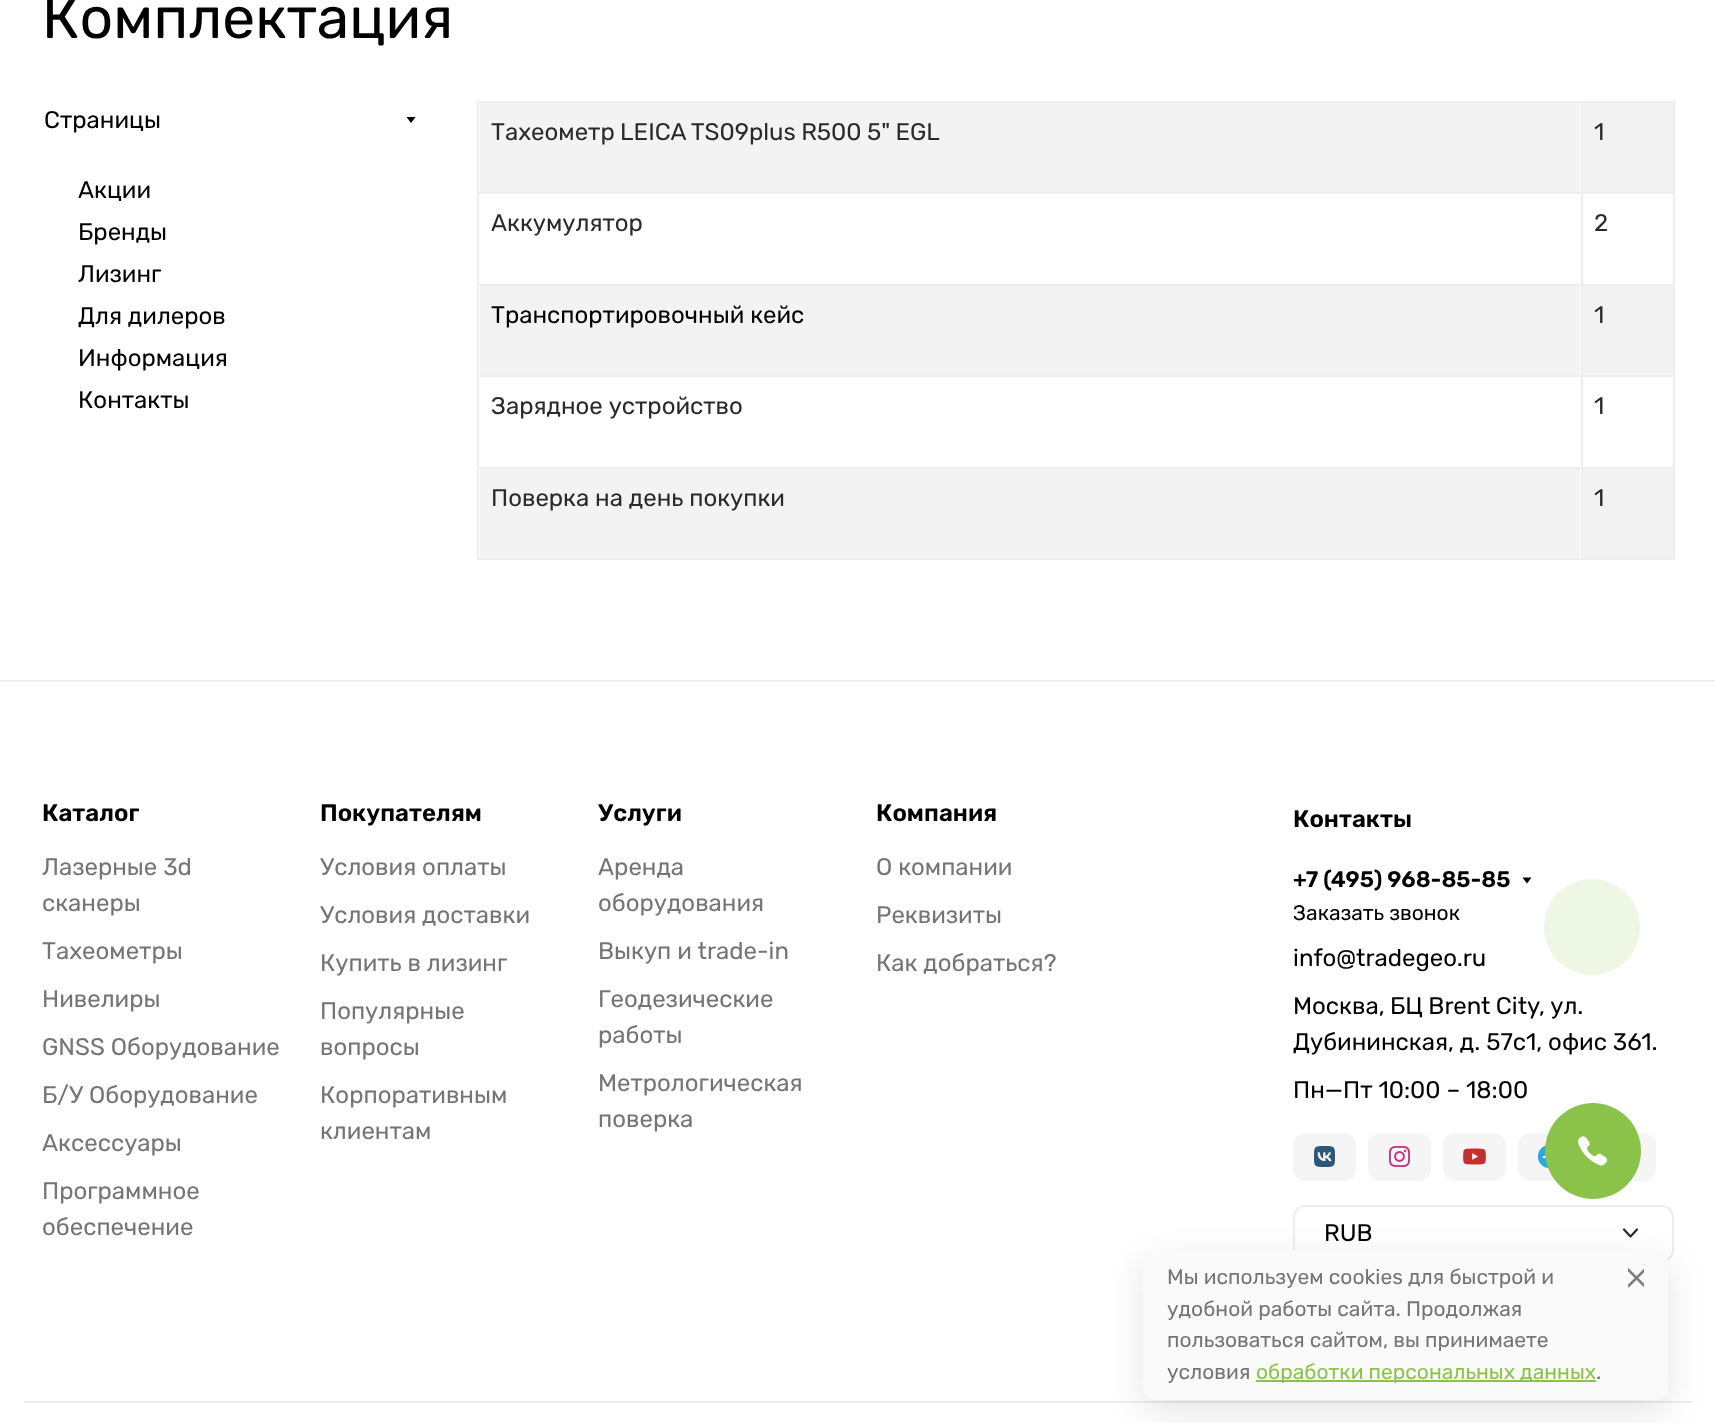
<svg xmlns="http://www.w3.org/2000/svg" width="1715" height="1423">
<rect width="100%" height="100%" fill="#fff"/>
<text x="42" y="38" style="font-family:Rubik;font-size:58.75px;font-weight:300;fill:#000">Комплектация</text>
<text x="44" y="128" style="font-family:Rubik;font-size:24px;font-weight:300;fill:#000">Страницы</text>
<path d="M406.5 117h9l-4.5 6z" fill="#000"/>
<text x="78" y="198" style="font-family:Rubik;font-size:24px;font-weight:300;fill:#000">Акции</text>
<text x="78" y="240" style="font-family:Rubik;font-size:24px;font-weight:300;fill:#000">Бренды</text>
<text x="78" y="282" style="font-family:Rubik;font-size:24px;font-weight:300;fill:#000">Лизинг</text>
<text x="78" y="324" style="font-family:Rubik;font-size:24px;font-weight:300;fill:#000">Для дилеров</text>
<text x="78" y="366" style="font-family:Rubik;font-size:24px;font-weight:300;fill:#000">Информация</text>
<text x="78" y="408" style="font-family:Rubik;font-size:24px;font-weight:300;fill:#000">Контакты</text>
<rect x="477" y="101" width="1197" height="2" fill="#eee"/>
<rect x="480" y="103" width="1100" height="89" fill="#f3f3f3"/>
<text x="491" y="140" word-spacing="-0.5" style="font-family:Rubik;font-size:24px;font-weight:300;fill:#2a2a2a">Тахеометр LEICA TS09plus R500 5" EGL</text>
<rect x="1583" y="103" width="90" height="89" fill="#f2f2f2"/>
<text x="1594" y="140" style="font-family:Rubik;font-size:24px;font-weight:300;fill:#2a2a2a">1</text>
<rect x="477" y="192" width="1197" height="2" fill="#eee"/>
<text x="491" y="231" style="font-family:Rubik;font-size:24px;font-weight:300;fill:#2a2a2a">Аккумулятор</text>
<text x="1594" y="231" style="font-family:Rubik;font-size:24px;font-weight:300;fill:#2a2a2a">2</text>
<rect x="477" y="284" width="1197" height="2" fill="#eee"/>
<rect x="480" y="286" width="1100" height="89" fill="#f3f3f3"/>
<text x="491" y="323" style="font-family:Rubik;font-size:24px;font-weight:300;fill:#000">Транспортировочный кейс</text>
<rect x="1583" y="286" width="90" height="89" fill="#f2f2f2"/>
<text x="1594" y="323" style="font-family:Rubik;font-size:24px;font-weight:300;fill:#2a2a2a">1</text>
<rect x="477" y="375" width="1197" height="2" fill="#eee"/>
<text x="491" y="414" style="font-family:Rubik;font-size:24px;font-weight:300;fill:#2a2a2a">Зарядное устройство</text>
<text x="1594" y="414" style="font-family:Rubik;font-size:24px;font-weight:300;fill:#2a2a2a">1</text>
<rect x="477" y="467" width="1197" height="2" fill="#eee"/>
<rect x="477" y="558" width="1197" height="2" fill="#eee"/>
<rect x="480" y="469" width="1100" height="89" fill="#f3f3f3"/>
<rect x="477" y="101" width="2" height="459" fill="#eee"/>
<text x="491" y="506" style="font-family:Rubik;font-size:24px;font-weight:300;fill:#2a2a2a">Поверка на день покупки</text>
<rect x="1583" y="469" width="90" height="89" fill="#f2f2f2"/>
<rect x="1673" y="101" width="2" height="459" fill="#eee"/>
<rect x="1581" y="101" width="2" height="459" fill="#eee"/>
<text x="1594" y="506" style="font-family:Rubik;font-size:24px;font-weight:300;fill:#2a2a2a">1</text>
<rect y="680" width="1715" height="2" fill="#eee"/>
<text x="42" y="821" style="font-family:Rubik;font-size:24px;font-weight:600;fill:#000">Каталог</text>
<text x="42" y="875" style="font-family:Rubik;font-size:24px;font-weight:300;fill:#757575">Лазерные 3d</text>
<text x="42" y="911" style="font-family:Rubik;font-size:24px;font-weight:300;fill:#757575">сканеры</text>
<text x="42" y="959" style="font-family:Rubik;font-size:24px;font-weight:300;fill:#757575">Тахеометры</text>
<text x="42" y="1007" style="font-family:Rubik;font-size:24px;font-weight:300;fill:#757575">Нивелиры</text>
<text x="42" y="1055" style="font-family:Rubik;font-size:24px;font-weight:300;fill:#757575">GNSS Оборудование</text>
<text x="42" y="1103" style="font-family:Rubik;font-size:24px;font-weight:300;fill:#757575">Б/У Оборудование</text>
<text x="42" y="1151" style="font-family:Rubik;font-size:24px;font-weight:300;fill:#757575">Аксессуары</text>
<text x="42" y="1199" style="font-family:Rubik;font-size:24px;font-weight:300;fill:#757575">Программное</text>
<text x="42" y="1235" style="font-family:Rubik;font-size:24px;font-weight:300;fill:#757575">обеспечение</text>
<text x="320" y="821" style="font-family:Rubik;font-size:24px;font-weight:600;fill:#000">Покупателям</text>
<text x="320" y="875" style="font-family:Rubik;font-size:24px;font-weight:300;fill:#757575">Условия оплаты</text>
<text x="320" y="923" style="font-family:Rubik;font-size:24px;font-weight:300;fill:#757575">Условия доставки</text>
<text x="320" y="971" style="font-family:Rubik;font-size:24px;font-weight:300;fill:#757575">Купить в лизинг</text>
<text x="320" y="1019" style="font-family:Rubik;font-size:24px;font-weight:300;fill:#757575">Популярные</text>
<text x="320" y="1055" style="font-family:Rubik;font-size:24px;font-weight:300;fill:#757575">вопросы</text>
<text x="320" y="1103" style="font-family:Rubik;font-size:24px;font-weight:300;fill:#757575">Корпоративным</text>
<text x="320" y="1139" style="font-family:Rubik;font-size:24px;font-weight:300;fill:#757575">клиентам</text>
<text x="598" y="821" style="font-family:Rubik;font-size:24px;font-weight:600;fill:#000">Услуги</text>
<text x="598" y="875" style="font-family:Rubik;font-size:24px;font-weight:300;fill:#757575">Аренда</text>
<text x="598" y="911" style="font-family:Rubik;font-size:24px;font-weight:300;fill:#757575">оборудования</text>
<text x="598" y="959" style="font-family:Rubik;font-size:24px;font-weight:300;fill:#757575">Выкуп и trade-in</text>
<text x="598" y="1007" style="font-family:Rubik;font-size:24px;font-weight:300;fill:#757575">Геодезические</text>
<text x="598" y="1043" style="font-family:Rubik;font-size:24px;font-weight:300;fill:#757575">работы</text>
<text x="598" y="1091" style="font-family:Rubik;font-size:24px;font-weight:300;fill:#757575">Метрологическая</text>
<text x="598" y="1127" style="font-family:Rubik;font-size:24px;font-weight:300;fill:#757575">поверка</text>
<text x="876" y="821" style="font-family:Rubik;font-size:24px;font-weight:600;fill:#000">Компания</text>
<text x="876" y="875" style="font-family:Rubik;font-size:24px;font-weight:300;fill:#757575">О компании</text>
<text x="876" y="923" style="font-family:Rubik;font-size:24px;font-weight:300;fill:#757575">Реквизиты</text>
<text x="876" y="971" style="font-family:Rubik;font-size:24px;font-weight:300;fill:#757575">Как добраться?</text>
<text x="1293" y="827" style="font-family:Rubik;font-size:24px;font-weight:600;fill:#000">Контакты</text>
<text x="1293" y="887" style="font-family:Rubik;font-size:22.5px;font-weight:600;fill:#000">+7 (495) 968-85-85</text>
<path d="M1522.5 877.5h9l-4.5 6z" fill="#000"/>
<text x="1293" y="920" style="font-family:Rubik;font-size:21px;font-weight:300;fill:#000">Заказать звонок</text>
<text x="1293" y="966" style="font-family:Rubik;font-size:24px;font-weight:300;fill:#000">info@tradegeo.ru</text>
<text x="1293" y="1014" word-spacing="-0.5" style="font-family:Rubik;font-size:24px;font-weight:300;fill:#000">Москва, БЦ Brent City, ул.</text>
<text x="1293" y="1050" style="font-family:Rubik;font-size:24px;font-weight:300;fill:#000">Дубининская, д. 57с1, офис 361.</text>
<text x="1293" y="1098" style="font-family:Rubik;font-size:24px;font-weight:300;fill:#000">Пн—Пт 10:00 – 18:00</text>
<rect x="1293" y="1133" width="63" height="48" rx="12" fill="#f5f5f5"/>
<image x="1314" y="1146" width="21" height="21" href="media/1.png"/>
<rect x="1368" y="1133" width="63" height="48" rx="12" fill="#f5f5f5"/>
<image x="1389" y="1146" width="21" height="21" href="media/2.png"/>
<rect x="1443" y="1133" width="63" height="48" rx="12" fill="#f5f5f5"/>
<image x="1463" y="1148" width="23" height="17" href="media/3.png"/>
<rect x="1518" y="1133" width="63" height="48" rx="12" fill="#f5f5f5"/>
<image x="1538" y="1145" width="11" height="24" href="media/4.png"/>
<rect x="1593" y="1133" width="63" height="48" rx="12" fill="#f5f5f5"/>
<path d="M1624 1229.5l6.5 7l6.5-7" fill="none" stroke="#2a2a2a" stroke-width="2.2" stroke-linecap="round" stroke-linejoin="round"/>
<rect x="1294" y="1206" width="379" height="55" rx="11" fill="none" stroke="#eee" stroke-width="2"/>
<text x="1324" y="1241" style="font-family:Rubik;font-size:24px;font-weight:300;fill:#000">RUB</text>
<rect x="24" y="1401" width="1668" height="2" fill="#eee"/>
<circle cx="1593" cy="1151" r="48" fill="#8bc34a"/>
<circle cx="1592" cy="927" r="48" fill="#eef6e4"/>
<image x="1578" y="1136" width="30" height="30" href="media/5.png"/>
<rect x="1143" y="1262" width="525" height="150" rx="12" fill="#0000001a" filter="blur(18px)"/>
<rect x="1143" y="1250" width="525" height="150" rx="12" fill="#fafafa"/>
<text x="1167" y="1284" style="font-family:Rubik;font-size:21px;font-weight:300;fill:#757575">Мы используем cookies для быстрой и</text>
<text x="1167" y="1316" style="font-family:Rubik;font-size:21px;font-weight:300;fill:#757575">удобной работы сайта. Продолжая</text>
<text x="1167" y="1347" style="font-family:Rubik;font-size:21px;font-weight:300;fill:#757575">пользоваться сайтом, вы принимаете</text>
<text x="1167" y="1379" style="font-family:Rubik;font-size:21px;font-weight:300;fill:#757575">условия</text>
<rect x="1256" y="1380" width="340" height="2" fill="#8bc34a"/>
<text x="1256" y="1379" style="font-family:Rubik;font-size:21px;font-weight:300;fill:#8bc34a">обработки персональных данных</text>
<text x="1596" y="1379" style="font-family:Rubik;font-size:21px;font-weight:300;fill:#757575">.</text>
<image x="1628" y="1268" width="16" height="20" href="media/6.png"/>
</svg>
